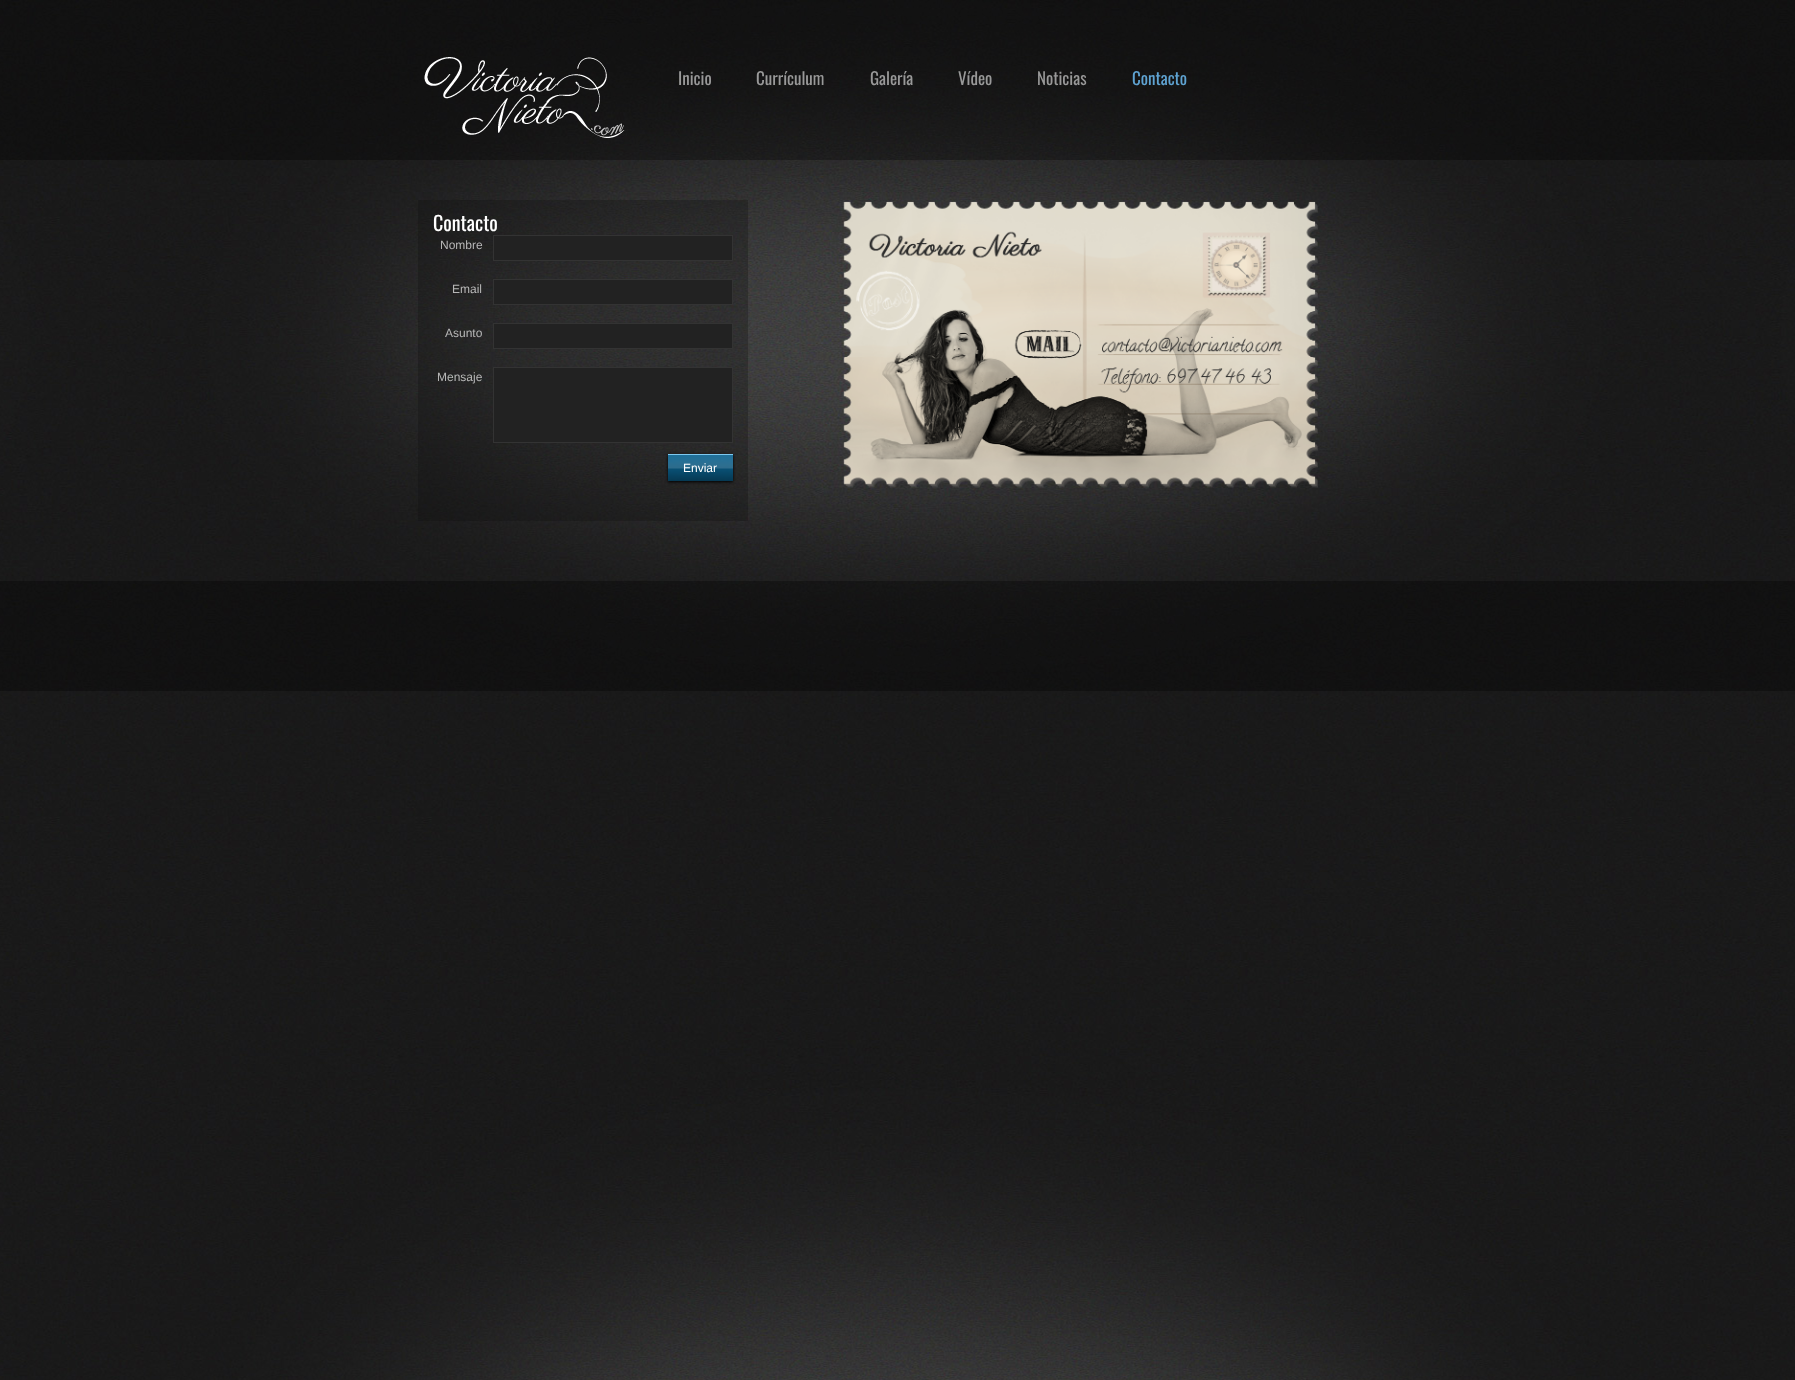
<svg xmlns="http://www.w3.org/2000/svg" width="1795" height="1380">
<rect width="100%" height="100%" fill="#fff"/>
<image x="0" y="0" width="1795" height="1380" href="media/1.png"/>
<rect width="1795" height="160" fill="#0000004d"/>
<image x="424" y="57" width="201" height="81" href="media/2.png"/>
<text x="678" y="85" style="font-family:Oswald;font-size:17px;fill:#999">Inicio</text>
<text x="756" y="85" style="font-family:Oswald;font-size:17px;fill:#999">Currículum</text>
<text x="870" y="85" style="font-family:Oswald;font-size:17px;fill:#999">Galería</text>
<text x="958" y="85" style="font-family:Oswald;font-size:17px;fill:#999">Vídeo</text>
<text x="1037" y="85" style="font-family:Oswald;font-size:17px;fill:#999">Noticias</text>
<text x="1132" y="85" style="font-family:Oswald;font-size:17px;fill:#5fa3d2">Contacto</text>
<rect x="418" y="200" width="330" height="321" fill="#1111114d"/>
<text x="433" y="231" style="font-family:Oswald;font-size:20px;fill:#fff">Contacto</text>
<text x="440" y="249" style="font-family:Arimo;font-size:12px;fill:#b7b7b7">Nombre</text>
<rect x="493.5" y="235.5" width="239" height="25" fill="#222" stroke="#333"/>
<text x="452" y="293" style="font-family:Arimo;font-size:12px;fill:#b7b7b7">Email</text>
<rect x="493.5" y="279.5" width="239" height="25" fill="#222" stroke="#333"/>
<text x="445" y="337" style="font-family:Arimo;font-size:12px;fill:#b7b7b7">Asunto</text>
<rect x="493.5" y="323.5" width="239" height="25" fill="#222" stroke="#333"/>
<text x="437" y="381" style="font-family:Arimo;font-size:12px;fill:#b7b7b7">Mensaje</text>
<rect x="493.5" y="367.5" width="239" height="75" fill="#222" stroke="#333"/>
<rect x="668" y="455" width="65" height="27" fill="#000" filter="blur(1.5px)"/>
<image x="668" y="455" width="65" height="26" href="media/3.png"/>
<rect x="668" y="454" width="65" height="1" fill="#7ec9ef"/>
<text x="683" y="472" style="font-family:Arimo;font-size:12px;fill:#fff">Enviar</text>
<image x="843" y="201" width="475" height="287" href="media/4.png"/>
<rect y="581" width="1795" height="110" fill="#0000004d"/>
</svg>
